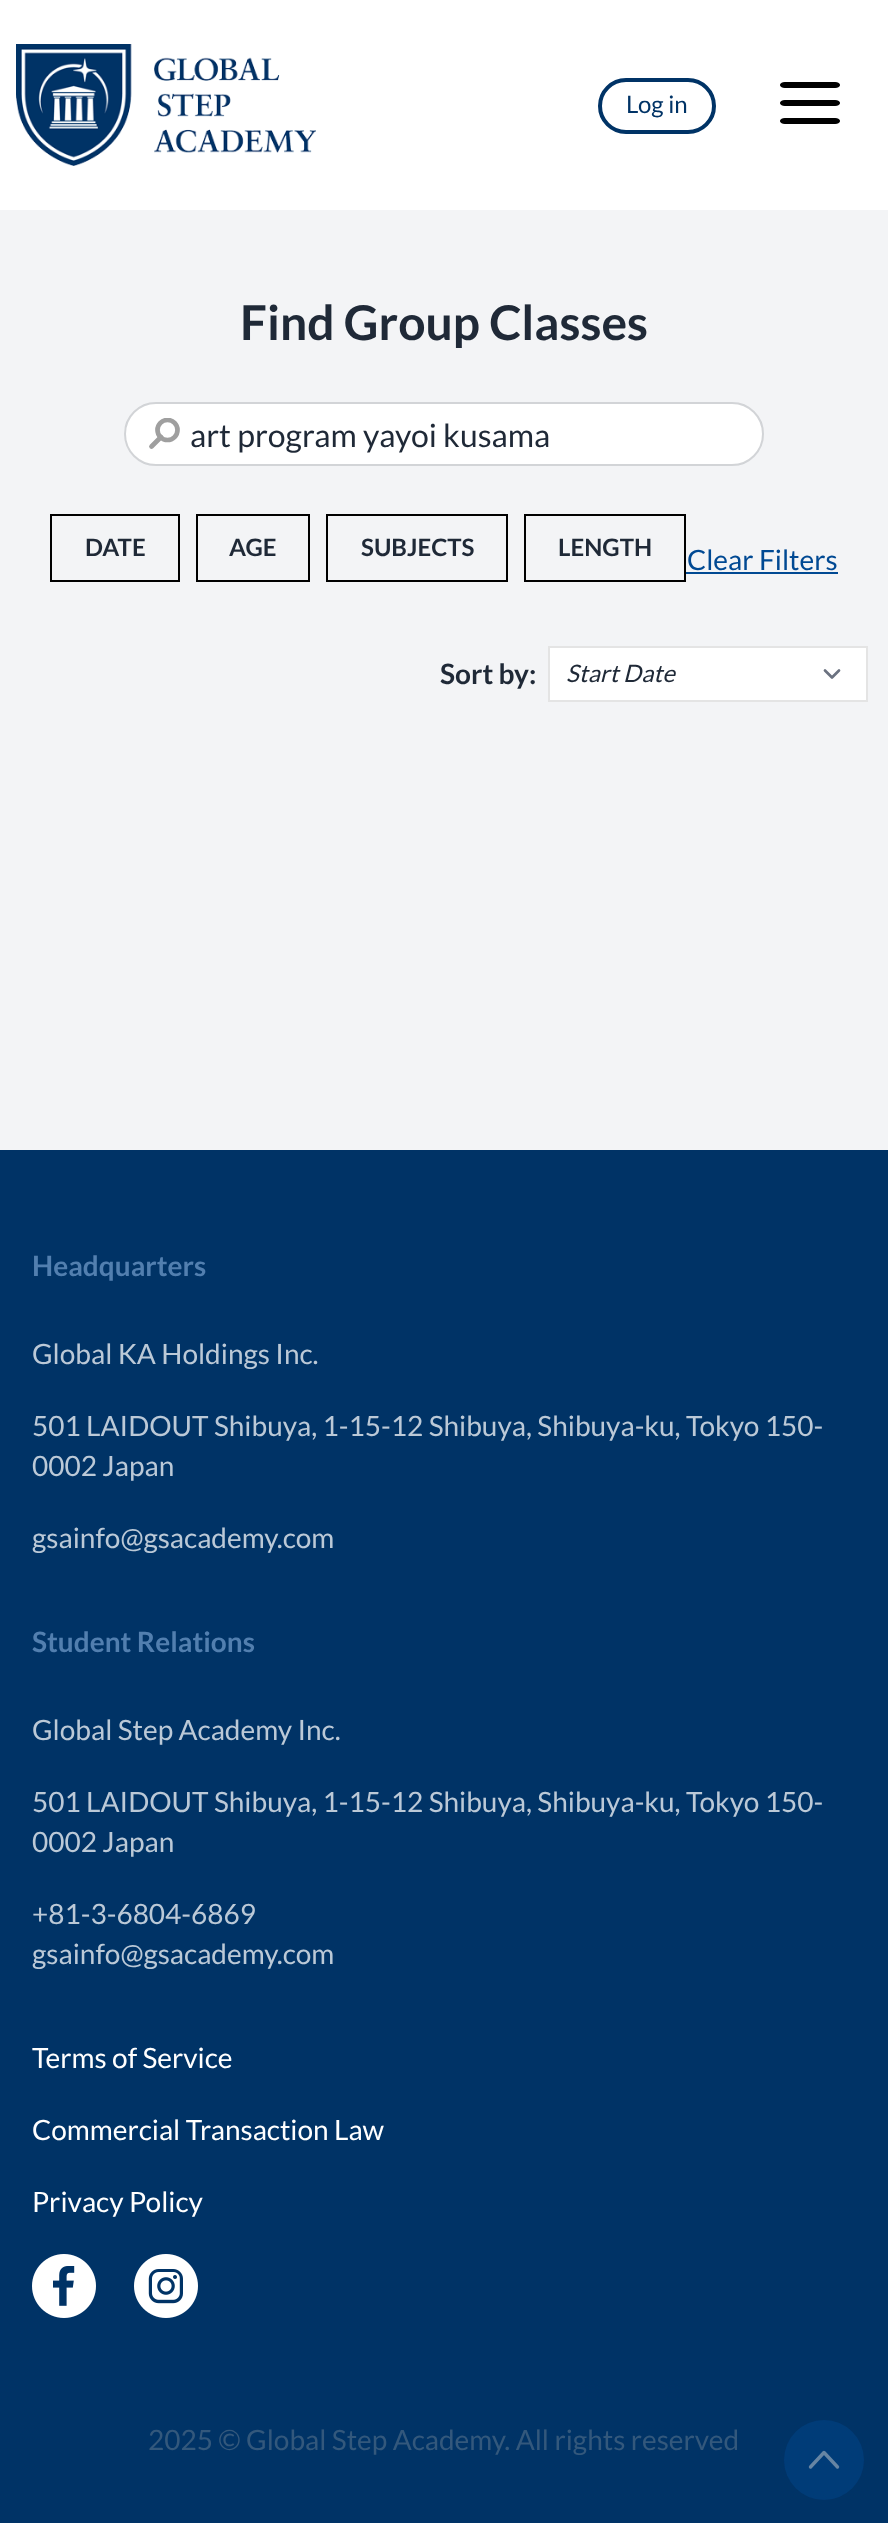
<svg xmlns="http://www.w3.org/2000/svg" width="888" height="2523">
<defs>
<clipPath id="clip1"><rect x="148" y="418" width="32" height="32"/></clipPath>
</defs>
<rect width="100%" height="100%" fill="#f3f4f6"/>
<rect width="888" height="210" fill="#fff"/>
<image x="16" y="44" width="300" height="122" href="media/1.png"/>
<rect x="600" y="80" width="114" height="52" rx="26" fill="none" stroke="#036" stroke-width="4"/>
<text x="626" y="113" style="font-family:Lato;font-size:24px;fill:#036">Log in</text>
<image x="780" y="82" width="60" height="42" href="media/2.png"/>
<text x="240" y="340" style="font-family:Lato;font-size:48px;font-weight:bold;fill:#1f2937">Find Group Classes</text>
<rect x="124" y="402" width="640" height="64" rx="32" fill="#fff"/>
<rect x="125" y="403" width="638" height="62" rx="31" fill="none" stroke="#1f293733" stroke-width="2"/>
<g clip-path="url(#clip1)">
<circle cx="167.5" cy="430" r="10" fill="none" stroke="#9f9f9f" stroke-width="4.7"/>
</g>
<path d="M161 437l-9.5 9.5" fill="none" stroke="#9f9f9f" stroke-width="4.7" stroke-linecap="round"/>
<text x="190" y="447" style="font-family:Lato;font-size:32px;fill:#1f2937">art program yayoi kusama</text>
<rect x="51" y="515" width="128" height="66" fill="none" stroke="#000" stroke-width="2"/>
<text x="85" y="556" style="font-family:Lato;font-size:24px;font-weight:bold;fill:#1f2937">DATE</text>
<rect x="197" y="515" width="112" height="66" fill="none" stroke="#000" stroke-width="2"/>
<text x="229" y="556" style="font-family:Lato;font-size:24px;font-weight:bold;fill:#1f2937">AGE</text>
<rect x="327" y="515" width="180" height="66" fill="none" stroke="#000" stroke-width="2"/>
<text x="361" y="556" style="font-family:Lato;font-size:24px;font-weight:bold;fill:#1f2937">SUBJECTS</text>
<rect x="525" y="515" width="160" height="66" fill="none" stroke="#000" stroke-width="2"/>
<text x="558" y="556" style="font-family:Lato;font-size:24px;font-weight:bold;fill:#1f2937">LENGTH</text>
<text x="687" y="570" style="font-family:Lato;font-size:28px;fill:#004993">Clear Filters</text>
<rect x="686" y="572" width="152" height="2" fill="#004993"/>
<text x="440" y="684" style="font-family:Lato;font-size:28px;font-weight:bold;fill:#1f2937">Sort by:</text>
<rect x="550" y="648" width="316" height="52" fill="#fff"/>
<path d="M825 670.5l7 7l7-7" fill="none" stroke="#6b7280" stroke-width="2.7" stroke-linecap="round" stroke-linejoin="round"/>
<rect x="549" y="647" width="318" height="54" fill="none" stroke="#e4e4e4" stroke-width="2"/>
<text x="566" y="682" style="font-family:Lato;font-size:24px;font-style:italic;fill:#1f2937">Start Date</text>
<rect y="1150" width="888" height="1373" fill="#036"/>
<circle cx="824" cy="2460" r="40" fill="#003c78"/>
<path d="M810.5 2467l13.5-14.5l13.5 14.5" fill="none" stroke="#6685a3" stroke-width="3.4" stroke-linecap="round" stroke-linejoin="round"/>
<text x="32" y="1276" style="font-family:Lato;font-size:28px;font-weight:bold;fill:#527faf">Headquarters</text>
<text x="32" y="1364" style="font-family:Lato;font-size:28px;fill:#bbc9d7">Global KA Holdings Inc.</text>
<text x="32" y="1436" style="font-family:Lato;font-size:28px;fill:#bbc9d7">501 LAIDOUT Shibuya, 1-15-12 Shibuya, Shibuya-ku, Tokyo 150-</text>
<text x="32" y="1476" style="font-family:Lato;font-size:28px;fill:#bbc9d7">0002 Japan</text>
<text x="32" y="1548" style="font-family:Lato;font-size:28px;fill:#bbc9d7">gsainfo@gsacademy.com</text>
<text x="32" y="1652" style="font-family:Lato;font-size:28px;font-weight:bold;fill:#527faf">Student Relations</text>
<text x="32" y="1740" style="font-family:Lato;font-size:28px;fill:#bbc9d7">Global Step Academy Inc.</text>
<text x="32" y="1812" style="font-family:Lato;font-size:28px;fill:#bbc9d7">501 LAIDOUT Shibuya, 1-15-12 Shibuya, Shibuya-ku, Tokyo 150-</text>
<text x="32" y="1852" style="font-family:Lato;font-size:28px;fill:#bbc9d7">0002 Japan</text>
<text x="32" y="1924" style="font-family:Lato;font-size:28px;fill:#bbc9d7">+81-3-6804-6869</text>
<text x="32" y="1964" style="font-family:Lato;font-size:28px;fill:#bbc9d7">gsainfo@gsacademy.com</text>
<text x="32" y="2068" style="font-family:Lato;font-size:28px;fill:#fff">Terms of Service</text>
<text x="32" y="2140" style="font-family:Lato;font-size:28px;fill:#fff">Commercial Transaction Law</text>
<text x="32" y="2212" style="font-family:Lato;font-size:28px;fill:#fff">Privacy Policy</text>
<image x="32" y="2254" width="64" height="64" href="media/3.png"/>
<image x="134" y="2254" width="64" height="64" href="media/4.png"/>
<text x="148" y="2450" style="font-family:Lato;font-size:28px;fill:#33587c">2025 © Global Step Academy. All rights reserved</text>
</svg>
